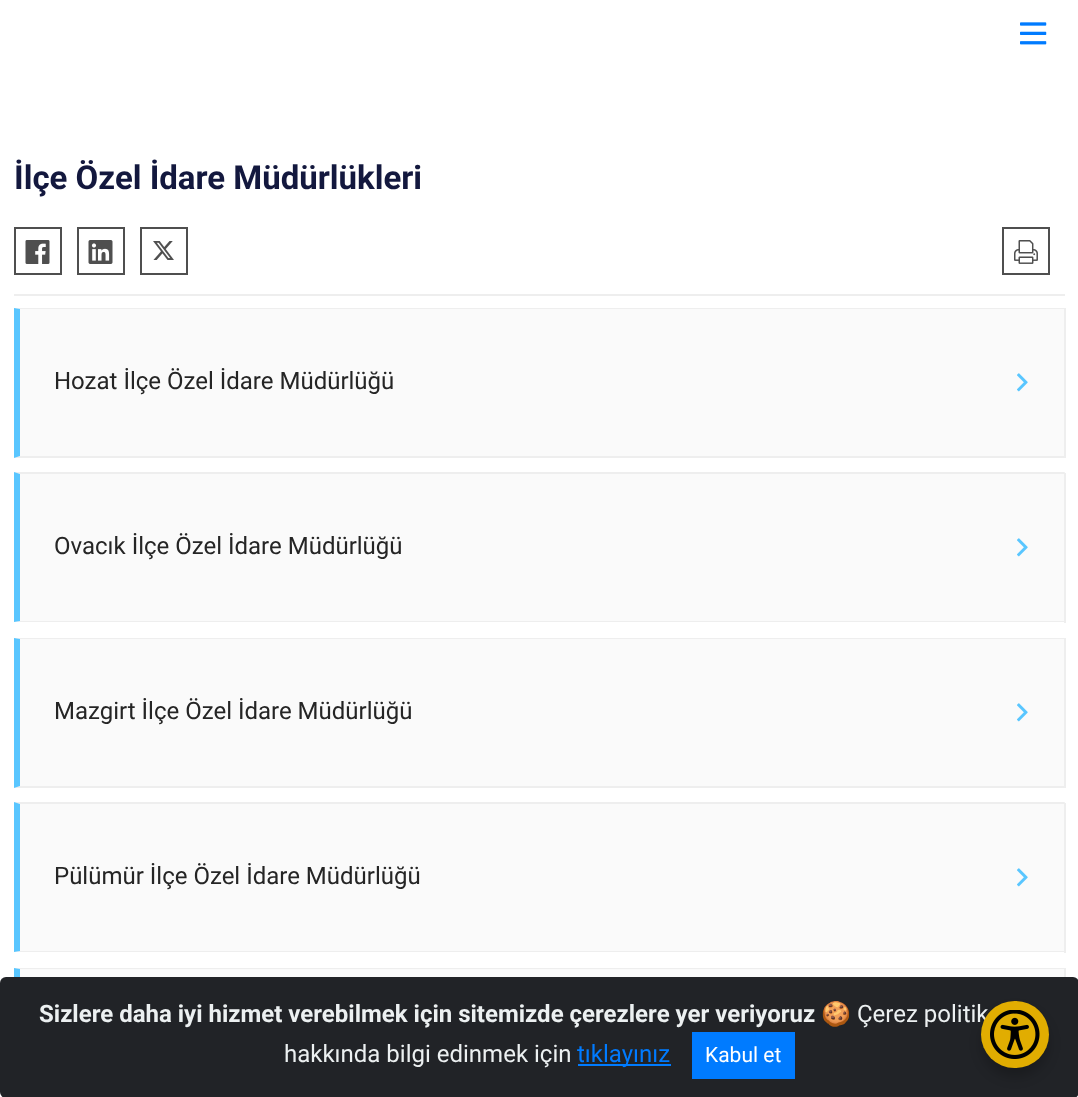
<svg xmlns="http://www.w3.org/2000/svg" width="1078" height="1097">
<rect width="100%" height="100%" fill="#fff"/>
<image x="1020" y="22" width="27" height="23" href="media/1.png"/>
<rect x="14" y="294" width="1051" height="2" fill="#eee"/>
<text x="14" y="189" style="font-family:Roboto;font-size:33px;font-weight:bold;fill:#13183e">İlçe Özel İdare Müdürlükleri</text>
<rect x="15" y="228" width="46" height="46" fill="none" stroke="#4f4f4f" stroke-width="2"/>
<image x="25" y="240" width="25" height="24" href="media/2.png"/>
<rect x="78" y="228" width="46" height="46" fill="none" stroke="#4f4f4f" stroke-width="2"/>
<image x="88" y="240" width="25" height="24" href="media/3.png"/>
<rect x="141" y="228" width="46" height="46" fill="none" stroke="#4f4f4f" stroke-width="2"/>
<image x="153" y="241" width="21" height="19" href="media/4.png"/>
<rect x="1003" y="228" width="46" height="46" fill="none" stroke="#4f4f4f" stroke-width="2"/>
<image x="1014" y="240" width="24" height="24" href="media/5.png"/>
<rect x="20" y="309" width="1044" height="147" fill="#fafafa"/>
<path d="M14 308h1051l-1 1h-1044z" fill="#eee"/>
<rect x="1064" y="308" width="2" height="150" fill="#eee"/>
<path d="M1065 458h-1051l6-2h1044z" fill="#eee"/>
<path d="M14 458v-150l6 1v147z" fill="#59c6ff"/>
<text x="54" y="389" style="font-family:Roboto;font-size:24px;fill:#252525">Hozat İlçe Özel İdare Müdürlüğü</text>
<image x="1017" y="373" width="11" height="19" href="media/6.png"/>
<rect x="20" y="474" width="1044" height="147" fill="#fafafa"/>
<path d="M14 472h1051l-1 2h-1044z" fill="#eee"/>
<rect x="1064" y="473" width="2" height="150" fill="#eee"/>
<path d="M1065 622h-1051l6-1h1044z" fill="#eee"/>
<path d="M14 622v-150l6 2v147z" fill="#59c6ff"/>
<text x="54" y="554" style="font-family:Roboto;font-size:24px;fill:#252525">Ovacık İlçe Özel İdare Müdürlüğü</text>
<image x="1017" y="538" width="11" height="19" href="media/6.png"/>
<rect x="20" y="639" width="1044" height="147" fill="#fafafa"/>
<path d="M14 638h1051l-1 1h-1044z" fill="#eee"/>
<rect x="1064" y="638" width="2" height="150" fill="#eee"/>
<path d="M1065 788h-1051l6-2h1044z" fill="#eee"/>
<path d="M14 788v-150l6 1v147z" fill="#59c6ff"/>
<text x="54" y="719" style="font-family:Roboto;font-size:24px;fill:#252525">Mazgirt İlçe Özel İdare Müdürlüğü</text>
<image x="1017" y="703" width="11" height="19" href="media/6.png"/>
<rect x="20" y="804" width="1044" height="147" fill="#fafafa"/>
<path d="M14 802h1051l-1 2h-1044z" fill="#eee"/>
<rect x="1064" y="803" width="2" height="150" fill="#eee"/>
<path d="M1065 952h-1051l6-1h1044z" fill="#eee"/>
<path d="M14 952v-150l6 2v147z" fill="#59c6ff"/>
<text x="54" y="884" style="font-family:Roboto;font-size:24px;fill:#252525">Pülümür İlçe Özel İdare Müdürlüğü</text>
<image x="1017" y="868" width="11" height="19" href="media/6.png"/>
<rect x="20" y="969" width="1044" height="8" fill="#fafafa"/>
<path d="M14 968h1051l-1 1h-1044z" fill="#eee"/>
<rect x="1064" y="968" width="2" height="9" fill="#eee"/>
<path d="M14 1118v-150l6 1v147z" fill="#59c6ff"/>
<rect y="977" width="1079" height="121" rx="6" fill="#212327"/>
<text x="39" y="1022" style="font-family:Roboto;font-size:24px;font-weight:bold;fill:#ecf0f1">Sizlere daha iyi hizmet verebilmek için sitemizde çerezlere yer veriyoruz</text>
<text x="821" y="1022" style="font-family:Noto Color Emoji;font-size:24px;fill:#ecf0f1">🍪</text>
<text x="857" y="1022" style="font-family:Roboto;font-size:24px;fill:#ecf0f1">Çerez politik</text>
<text x="284" y="1062" style="font-family:Roboto;font-size:24px;fill:#ecf0f1">hakkında bilgi edinmek için</text>
<rect x="578" y="1064" width="93" height="2" fill="#007bff"/>
<text x="577" y="1062" style="font-family:Roboto;font-size:24px;fill:#007bff">tıklayınız</text>
<rect x="692" y="1032" width="103" height="47" fill="#007bff"/>
<text x="705" y="1062" style="font-family:Roboto;font-size:21px;fill:#fff">Kabul et</text>
<rect x="981" y="1010" width="68" height="67" rx="33.5" fill="#00000033" filter="blur(6px)"/>
<rect x="981" y="1001" width="68" height="67" rx="33.5" fill="#e1ad01"/>
<image x="990" y="1010" width="50" height="49" href="media/7.png"/>
</svg>
